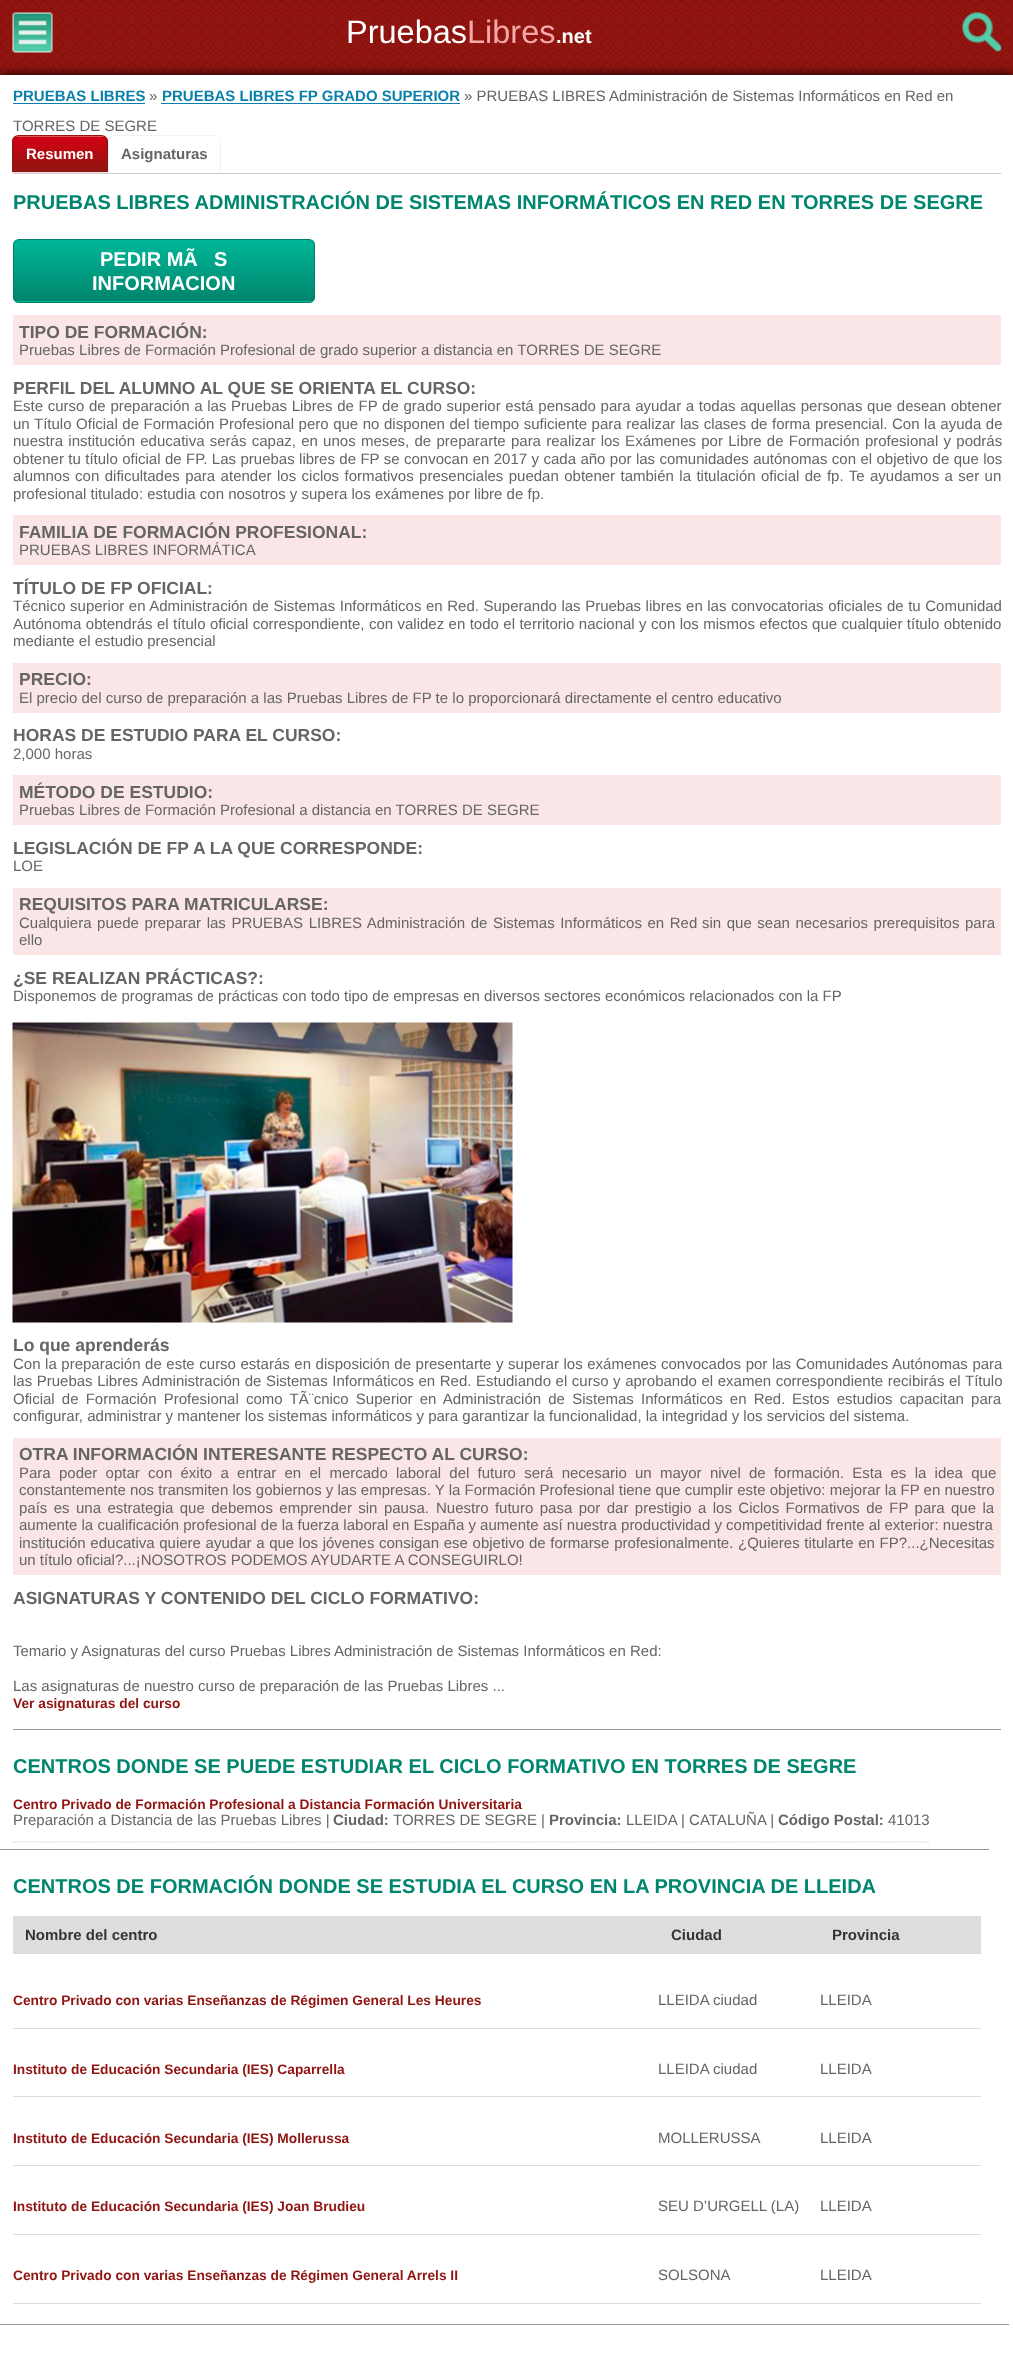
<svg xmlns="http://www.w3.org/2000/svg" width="1013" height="2356">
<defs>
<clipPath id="clip1"><rect x="13" y="239" width="302" height="64" rx="6"/></clipPath>
<linearGradient id="g1" gradientUnits="userSpaceOnUse" x1="164" y1="240" x2="164" y2="301"><stop offset="0" stop-color="#00b798"/><stop offset="1" stop-color="#00856d"/></linearGradient>
<linearGradient id="g2" gradientUnits="userSpaceOnUse" x1="164" y1="301" x2="164" y2="363"><stop offset="0" stop-color="#00b798"/><stop offset="1" stop-color="#00856d"/></linearGradient>
</defs>
<rect width="100%" height="100%" fill="#fff"/>
<image x="0" y="0" width="1013" height="75" href="media/1.png"/>
<image x="12" y="12" width="41" height="41" href="media/2.png"/>
<text x="346" y="43" style="font-family:Liberation Sans;font-size:32.5px;fill:#fff">Pruebas</text>
<text x="467" y="43" style="font-family:Liberation Sans;font-size:32.5px;fill:#f5a8a8">Libres</text>
<text x="556" y="43" style="font-family:Liberation Sans;font-size:20px;font-weight:bold;fill:#fff">.net</text>
<image x="962" y="12" width="40" height="40" href="media/3.png"/>
<rect y="75" width="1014" height="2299" fill="#000" filter="blur(6px)"/>
<rect y="75" width="1013" height="2281" fill="#fff"/>
<text x="13" y="101" style="font-family:Liberation Sans;font-size:15px;font-weight:bold;fill:#0b80ab">PRUEBAS LIBRES</text>
<rect x="13" y="103" width="132" height="1" fill="#0b80ab"/>
<text x="149" y="101" style="font-family:Liberation Sans;font-size:15px;fill:#656565">»</text>
<text x="162" y="101" style="font-family:Liberation Sans;font-size:15px;font-weight:bold;fill:#0b80ab">PRUEBAS LIBRES FP GRADO SUPERIOR</text>
<rect x="161" y="103" width="299" height="1" fill="#0b80ab"/>
<text x="464" y="101" style="font-family:Liberation Sans;font-size:15px;fill:#656565">» PRUEBAS LIBRES Administración de Sistemas Informáticos en Red en</text>
<text x="13" y="131" style="font-family:Liberation Sans;font-size:15px;fill:#656565">TORRES DE SEGRE</text>
<rect x="13" y="173" width="988" height="1" fill="#ccc"/>
<image x="12" y="136" width="96" height="37" href="media/4.png"/>
<path d="M19 135h82c4 0 7 3 7 6v31h-96v-31c0-3 3-6 7-6zm0 1h82c3 0 5 2 5 5v31h-92v-31c0-3 2-5 5-5z" fill="#961310" fill-rule="evenodd"/>
<text x="26" y="159" style="font-family:Liberation Sans;font-size:15px;font-weight:bold;fill:#fff">Resumen</text>
<path d="M114 135h101c3 0 6 3 6 6v31h-113v-31c0-3 2-6 6-6zm0 1h101c3 0 5 2 5 5v31h-111v-31c0-3 2-5 5-5z" fill="#f1f1f1" fill-rule="evenodd"/>
<text x="121" y="159" style="font-family:Liberation Sans;font-size:15px;font-weight:bold;fill:#656565">Asignaturas</text>
<text x="13" y="209" style="font-family:Liberation Sans;font-size:20px;font-weight:bold;fill:#00866f">PRUEBAS LIBRES ADMINISTRACIÓN DE SISTEMAS INFORMÁTICOS EN RED EN TORRES DE SEGRE</text>
<g clip-path="url(#clip1)">
<rect x="13" y="240" width="302" height="61" fill="url(#g1)"/>
<rect x="13" y="301" width="302" height="2" fill="url(#g2)"/>
</g>
<rect x="13.5" y="239.5" width="301" height="63" rx="5.5" fill="none" stroke="#00826b"/>
<text x="100" y="266" style="font-family:Liberation Sans;font-size:20px;font-weight:bold;fill:#fff">PEDIR MÃ</text>
<text x="214" y="266" style="font-family:Liberation Sans;font-size:20px;font-weight:bold;fill:#fff">S</text>
<text x="92" y="290" style="font-family:Liberation Sans;font-size:20px;font-weight:bold;fill:#fff">INFORMACION</text>
<rect x="13" y="315" width="988" height="50" fill="#fae6e6"/>
<text x="19" y="338" style="font-family:Liberation Sans;font-size:17.5px;font-weight:bold;fill:#656565">TIPO DE FORMACIÓN:</text>
<text x="19" y="355" style="font-family:Liberation Sans;font-size:15px;fill:#656565">Pruebas Libres de Formación Profesional de grado superior a distancia en TORRES DE SEGRE</text>
<text x="13" y="394" style="font-family:Liberation Sans;font-size:17.5px;font-weight:bold;fill:#656565">PERFIL DEL ALUMNO AL QUE SE ORIENTA EL CURSO:</text>
<text x="13" y="411" word-spacing="0.5" style="font-family:Liberation Sans;font-size:15px;fill:#656565">Este curso de preparación a las Pruebas Libres de FP de grado superior está pensado para ayudar a todas aquellas personas que desean obtener</text>
<text x="13" y="429" word-spacing="0.4" style="font-family:Liberation Sans;font-size:15px;fill:#656565">un Título Oficial de Formación Profesional pero que no disponen del tiempo suficiente para realizar las clases de forma presencial. Con la ayuda de</text>
<text x="13" y="446" word-spacing="1.1" style="font-family:Liberation Sans;font-size:15px;fill:#656565">nuestra institución educativa serás capaz, en unos meses, de prepararte para realizar los Exámenes por Libre de Formación profesional y podrás</text>
<text x="13" y="464" word-spacing="0.25" style="font-family:Liberation Sans;font-size:15px;fill:#656565">obtener tu título oficial de FP. Las pruebas libres de FP se convocan en 2017 y cada año por las comunidades autónomas con el objetivo de que los</text>
<text x="13" y="481" word-spacing="1.25" style="font-family:Liberation Sans;font-size:15px;fill:#656565">alumnos con dificultades para atender</text>
<text x="277" y="481" word-spacing="1.25" style="font-family:Liberation Sans;font-size:15px;fill:#656565">los ciclos formativos presenciales puedan obtener también la titulación oficial de fp. Te ayudamos a ser un</text>
<text x="13" y="499" style="font-family:Liberation Sans;font-size:15px;fill:#656565">profesional titulado: estudia con nosotros y supera los exámenes por libre de fp.</text>
<rect x="13" y="515" width="988" height="50" fill="#fae6e6"/>
<text x="19" y="538" style="font-family:Liberation Sans;font-size:17.5px;font-weight:bold;fill:#656565">FAMILIA DE FORMACIÓN PROFESIONAL:</text>
<text x="19" y="555" style="font-family:Liberation Sans;font-size:15px;fill:#656565">PRUEBAS LIBRES INFORMÁTICA</text>
<text x="13" y="594" style="font-family:Liberation Sans;font-size:17.5px;font-weight:bold;fill:#656565">TÍTULO DE FP OFICIAL:</text>
<text x="13" y="611" word-spacing="0.4" style="font-family:Liberation Sans;font-size:15px;fill:#656565">Técnico superior en Administración de Sistemas Informáticos en Red. Superando las Pruebas libres en las convocatorias oficiales de tu Comunidad</text>
<text x="13" y="629" word-spacing="0.25" style="font-family:Liberation Sans;font-size:15px;fill:#656565">Autónoma obtendrás el título oficial correspondiente, con validez en todo el territorio nacional y con los mismos efectos que cualquier título obtenido</text>
<text x="13" y="646" style="font-family:Liberation Sans;font-size:15px;fill:#656565">mediante el estudio presencial</text>
<rect x="13" y="663" width="988" height="50" fill="#fae6e6"/>
<text x="19" y="685" style="font-family:Liberation Sans;font-size:17.5px;font-weight:bold;fill:#656565">PRECIO:</text>
<text x="19" y="703" style="font-family:Liberation Sans;font-size:15px;fill:#656565">El precio del curso de preparación a las Pruebas Libres de FP te lo proporcionará directamente el centro educativo</text>
<text x="13" y="741" style="font-family:Liberation Sans;font-size:17.5px;font-weight:bold;fill:#656565">HORAS DE ESTUDIO PARA EL CURSO:</text>
<text x="13" y="759" style="font-family:Liberation Sans;font-size:15px;fill:#656565">2,000 horas</text>
<rect x="13" y="775" width="988" height="50" fill="#fae6e6"/>
<text x="19" y="798" style="font-family:Liberation Sans;font-size:17.5px;font-weight:bold;fill:#656565">MÉTODO DE ESTUDIO:</text>
<text x="19" y="815" style="font-family:Liberation Sans;font-size:15px;fill:#656565">Pruebas Libres de Formación Profesional a distancia en TORRES DE SEGRE</text>
<text x="13" y="854" style="font-family:Liberation Sans;font-size:17.5px;font-weight:bold;fill:#656565">LEGISLACIÓN DE FP A LA QUE CORRESPONDE:</text>
<text x="13" y="871" style="font-family:Liberation Sans;font-size:15px;fill:#656565">LOE</text>
<rect x="13" y="888" width="988" height="67" fill="#fae6e6"/>
<text x="19" y="910" style="font-family:Liberation Sans;font-size:17.5px;font-weight:bold;fill:#656565">REQUISITOS PARA MATRICULARSE:</text>
<text x="19" y="928" word-spacing="1.4" style="font-family:Liberation Sans;font-size:15px;fill:#656565">Cualquiera puede preparar las PRUEBAS LIBRES Administración de Sistemas Informáticos en Red</text>
<text x="702" y="928" word-spacing="1.4" style="font-family:Liberation Sans;font-size:15px;fill:#656565">sin que sean necesarios prerequisitos para</text>
<text x="19" y="945" style="font-family:Liberation Sans;font-size:15px;fill:#656565">ello</text>
<text x="13" y="984" style="font-family:Liberation Sans;font-size:17.5px;font-weight:bold;fill:#656565">¿SE REALIZAN PRÁCTICAS?:</text>
<text x="13" y="1001" style="font-family:Liberation Sans;font-size:15px;fill:#656565">Disponemos de programas de prácticas con todo tipo de empresas en diversos sectores económicos relacionados con la FP</text>
<image x="12" y="1022" width="501" height="301" href="media/5.png"/>
<text x="13" y="1351" style="font-family:Liberation Sans;font-size:17.5px;font-weight:bold;fill:#656565">Lo que aprenderás</text>
<text x="13" y="1369" word-spacing="0.4" style="font-family:Liberation Sans;font-size:15px;fill:#656565">Con la preparación de este curso estarás en disposición de presentarte y superar los exámenes convocados por las Comunidades Autónomas para</text>
<text x="13" y="1386" word-spacing="0.4" style="font-family:Liberation Sans;font-size:15px;fill:#656565">las Pruebas Libres Administración de Sistemas Informáticos en Red. Estudiando el curso y aprobando el examen correspondiente recibirás el Título</text>
<text x="13" y="1404" word-spacing="3" style="font-family:Liberation Sans;font-size:15px;fill:#656565">Oficial de Formación Profesional como TÃ¨cnico Superior en Administración de Sistemas Informáticos en Red.</text>
<text x="792" y="1404" word-spacing="3" style="font-family:Liberation Sans;font-size:15px;fill:#656565">Estos estudios capacitan para</text>
<text x="13" y="1421" style="font-family:Liberation Sans;font-size:15px;fill:#656565">configurar, administrar y mantener los sistemas informáticos y para garantizar la funcionalidad, la integridad y los servicios del sistema.</text>
<rect x="13" y="1438" width="988" height="137" fill="#fae6e6"/>
<text x="19" y="1460" style="font-family:Liberation Sans;font-size:17.5px;font-weight:bold;fill:#656565">OTRA INFORMACIÓN INTERESANTE RESPECTO AL CURSO:</text>
<text x="19" y="1478" word-spacing="4.1" style="font-family:Liberation Sans;font-size:15px;fill:#656565">Para poder optar con éxito a entrar en el mercado laboral del futuro será necesario un mayor nivel de formación. Esta es la idea que</text>
<text x="19" y="1495" style="font-family:Liberation Sans;font-size:15px;fill:#656565">constantemente nos transmiten los gobiernos y las empresas. Y la Formación Profesional tiene que cumplir este objetivo: mejorar la FP en nuestro</text>
<text x="19" y="1513" word-spacing="2.25" style="font-family:Liberation Sans;font-size:15px;fill:#656565">país es una estrategia que debemos emprender sin pausa.</text>
<text x="436" y="1513" word-spacing="2.25" style="font-family:Liberation Sans;font-size:15px;fill:#656565">Nuestro futuro pasa por dar prestigio a los Ciclos Formativos de FP para que la</text>
<text x="19" y="1530" style="font-family:Liberation Sans;font-size:15px;fill:#656565">aumente la cualificación profesional de la fuerza laboral en España y aumente así nuestra productividad y competitividad frente al exterior: nuestra</text>
<text x="19" y="1548" word-spacing="0.5" style="font-family:Liberation Sans;font-size:15px;fill:#656565">institución educativa quiere ayudar a que los jóvenes</text>
<text x="379" y="1548" word-spacing="0.5" style="font-family:Liberation Sans;font-size:15px;fill:#656565">consigan ese objetivo de formarse profesionalmente.</text>
<text x="738" y="1548" word-spacing="0.5" style="font-family:Liberation Sans;font-size:15px;fill:#656565">¿Quieres titularte en FP?...¿Necesitas</text>
<text x="19" y="1565" style="font-family:Liberation Sans;font-size:15px;fill:#656565">un título oficial?...¡NOSOTROS PODEMOS AYUDARTE A CONSEGUIRLO!</text>
<text x="13" y="1604" style="font-family:Liberation Sans;font-size:17.5px;font-weight:bold;fill:#656565">ASIGNATURAS Y CONTENIDO DEL CICLO FORMATIVO:</text>
<text x="13" y="1656" style="font-family:Liberation Sans;font-size:15px;fill:#656565">Temario y Asignaturas del curso Pruebas Libres Administración de Sistemas Informáticos en Red:</text>
<text x="13" y="1691" style="font-family:Liberation Sans;font-size:15px;fill:#656565">Las asignaturas de nuestro curso de preparación de las Pruebas Libres ...</text>
<text x="13" y="1708" style="font-family:Liberation Sans;font-size:13.75px;font-weight:bold;fill:#901411">Ver asignaturas del curso</text>
<rect x="13" y="1729" width="988" height="1" fill="#999"/>
<text x="13" y="1773" style="font-family:Liberation Sans;font-size:20px;font-weight:bold;fill:#00866f">CENTROS DONDE SE PUEDE ESTUDIAR EL CICLO FORMATIVO EN TORRES DE SEGRE</text>
<path d="M12.5 1842h917.5" fill="none" stroke="#ccc" stroke-width="1.2" stroke-dasharray="1.25 1.25"/>
<text x="13" y="1809" style="font-family:Liberation Sans;font-size:13.75px;font-weight:bold;fill:#901411">Centro Privado de Formación Profesional a Distancia Formación Universitaria</text>
<text x="13" y="1825" style="font-family:Liberation Sans;font-size:15px;fill:#656565">Preparación a Distancia de las Pruebas Libres |</text>
<text x="333" y="1825" style="font-family:Liberation Sans;font-size:15px;font-weight:bold;fill:#656565">Ciudad:</text>
<text x="393" y="1825" style="font-family:Liberation Sans;font-size:15px;fill:#656565">TORRES DE SEGRE |</text>
<text x="549" y="1825" style="font-family:Liberation Sans;font-size:15px;font-weight:bold;fill:#656565">Provincia:</text>
<text x="626" y="1825" style="font-family:Liberation Sans;font-size:15px;fill:#656565">LLEIDA | CATALUÑA |</text>
<text x="778" y="1825" style="font-family:Liberation Sans;font-size:15px;font-weight:bold;fill:#656565">Código Postal:</text>
<text x="888" y="1825" style="font-family:Liberation Sans;font-size:15px;fill:#656565">41013</text>
<rect y="1849" width="989" height="1" fill="#999"/>
<text x="13" y="1893" style="font-family:Liberation Sans;font-size:20px;font-weight:bold;fill:#00866f">CENTROS DE FORMACIÓN DONDE SE ESTUDIA EL CURSO EN LA PROVINCIA DE LLEIDA</text>
<rect x="13" y="1916" width="968" height="38" fill="#ddd"/>
<text x="25" y="1940" style="font-family:Liberation Sans;font-size:15px;font-weight:bold;fill:#333">Nombre del centro</text>
<text x="671" y="1940" style="font-family:Liberation Sans;font-size:15px;font-weight:bold;fill:#333">Ciudad</text>
<text x="832" y="1940" style="font-family:Liberation Sans;font-size:15px;font-weight:bold;fill:#333">Provincia</text>
<rect x="13" y="2028" width="968" height="1" fill="#ddd"/>
<text x="13" y="2005" style="font-family:Liberation Sans;font-size:13.75px;font-weight:bold;fill:#901411">Centro Privado con varias Enseñanzas de Régimen General Les Heures</text>
<text x="658" y="2005" style="font-family:Liberation Sans;font-size:15px;fill:#656565">LLEIDA ciudad</text>
<text x="820" y="2005" style="font-family:Liberation Sans;font-size:15px;fill:#656565">LLEIDA</text>
<rect x="13" y="2096" width="968" height="1" fill="#ddd"/>
<text x="13" y="2074" style="font-family:Liberation Sans;font-size:13.75px;font-weight:bold;fill:#901411">Instituto de Educación Secundaria (IES) Caparrella</text>
<text x="658" y="2074" style="font-family:Liberation Sans;font-size:15px;fill:#656565">LLEIDA ciudad</text>
<text x="820" y="2074" style="font-family:Liberation Sans;font-size:15px;fill:#656565">LLEIDA</text>
<rect x="13" y="2165" width="968" height="1" fill="#ddd"/>
<text x="13" y="2143" style="font-family:Liberation Sans;font-size:13.75px;font-weight:bold;fill:#901411">Instituto de Educación Secundaria (IES) Mollerussa</text>
<text x="658" y="2143" style="font-family:Liberation Sans;font-size:15px;fill:#656565">MOLLERUSSA</text>
<text x="820" y="2143" style="font-family:Liberation Sans;font-size:15px;fill:#656565">LLEIDA</text>
<rect x="13" y="2234" width="968" height="1" fill="#ddd"/>
<text x="13" y="2211" style="font-family:Liberation Sans;font-size:13.75px;font-weight:bold;fill:#901411">Instituto de Educación Secundaria (IES) Joan Brudieu</text>
<text x="658" y="2211" style="font-family:Liberation Sans;font-size:15px;fill:#656565">SEU D’URGELL (LA)</text>
<text x="820" y="2211" style="font-family:Liberation Sans;font-size:15px;fill:#656565">LLEIDA</text>
<rect x="13" y="2303" width="968" height="1" fill="#ddd"/>
<text x="13" y="2280" style="font-family:Liberation Sans;font-size:13.75px;font-weight:bold;fill:#901411">Centro Privado con varias Enseñanzas de Régimen General Arrels II</text>
<text x="658" y="2280" style="font-family:Liberation Sans;font-size:15px;fill:#656565">SOLSONA</text>
<text x="820" y="2280" style="font-family:Liberation Sans;font-size:15px;fill:#656565">LLEIDA</text>
<rect y="2324" width="1009" height="1" fill="#999"/>
</svg>
